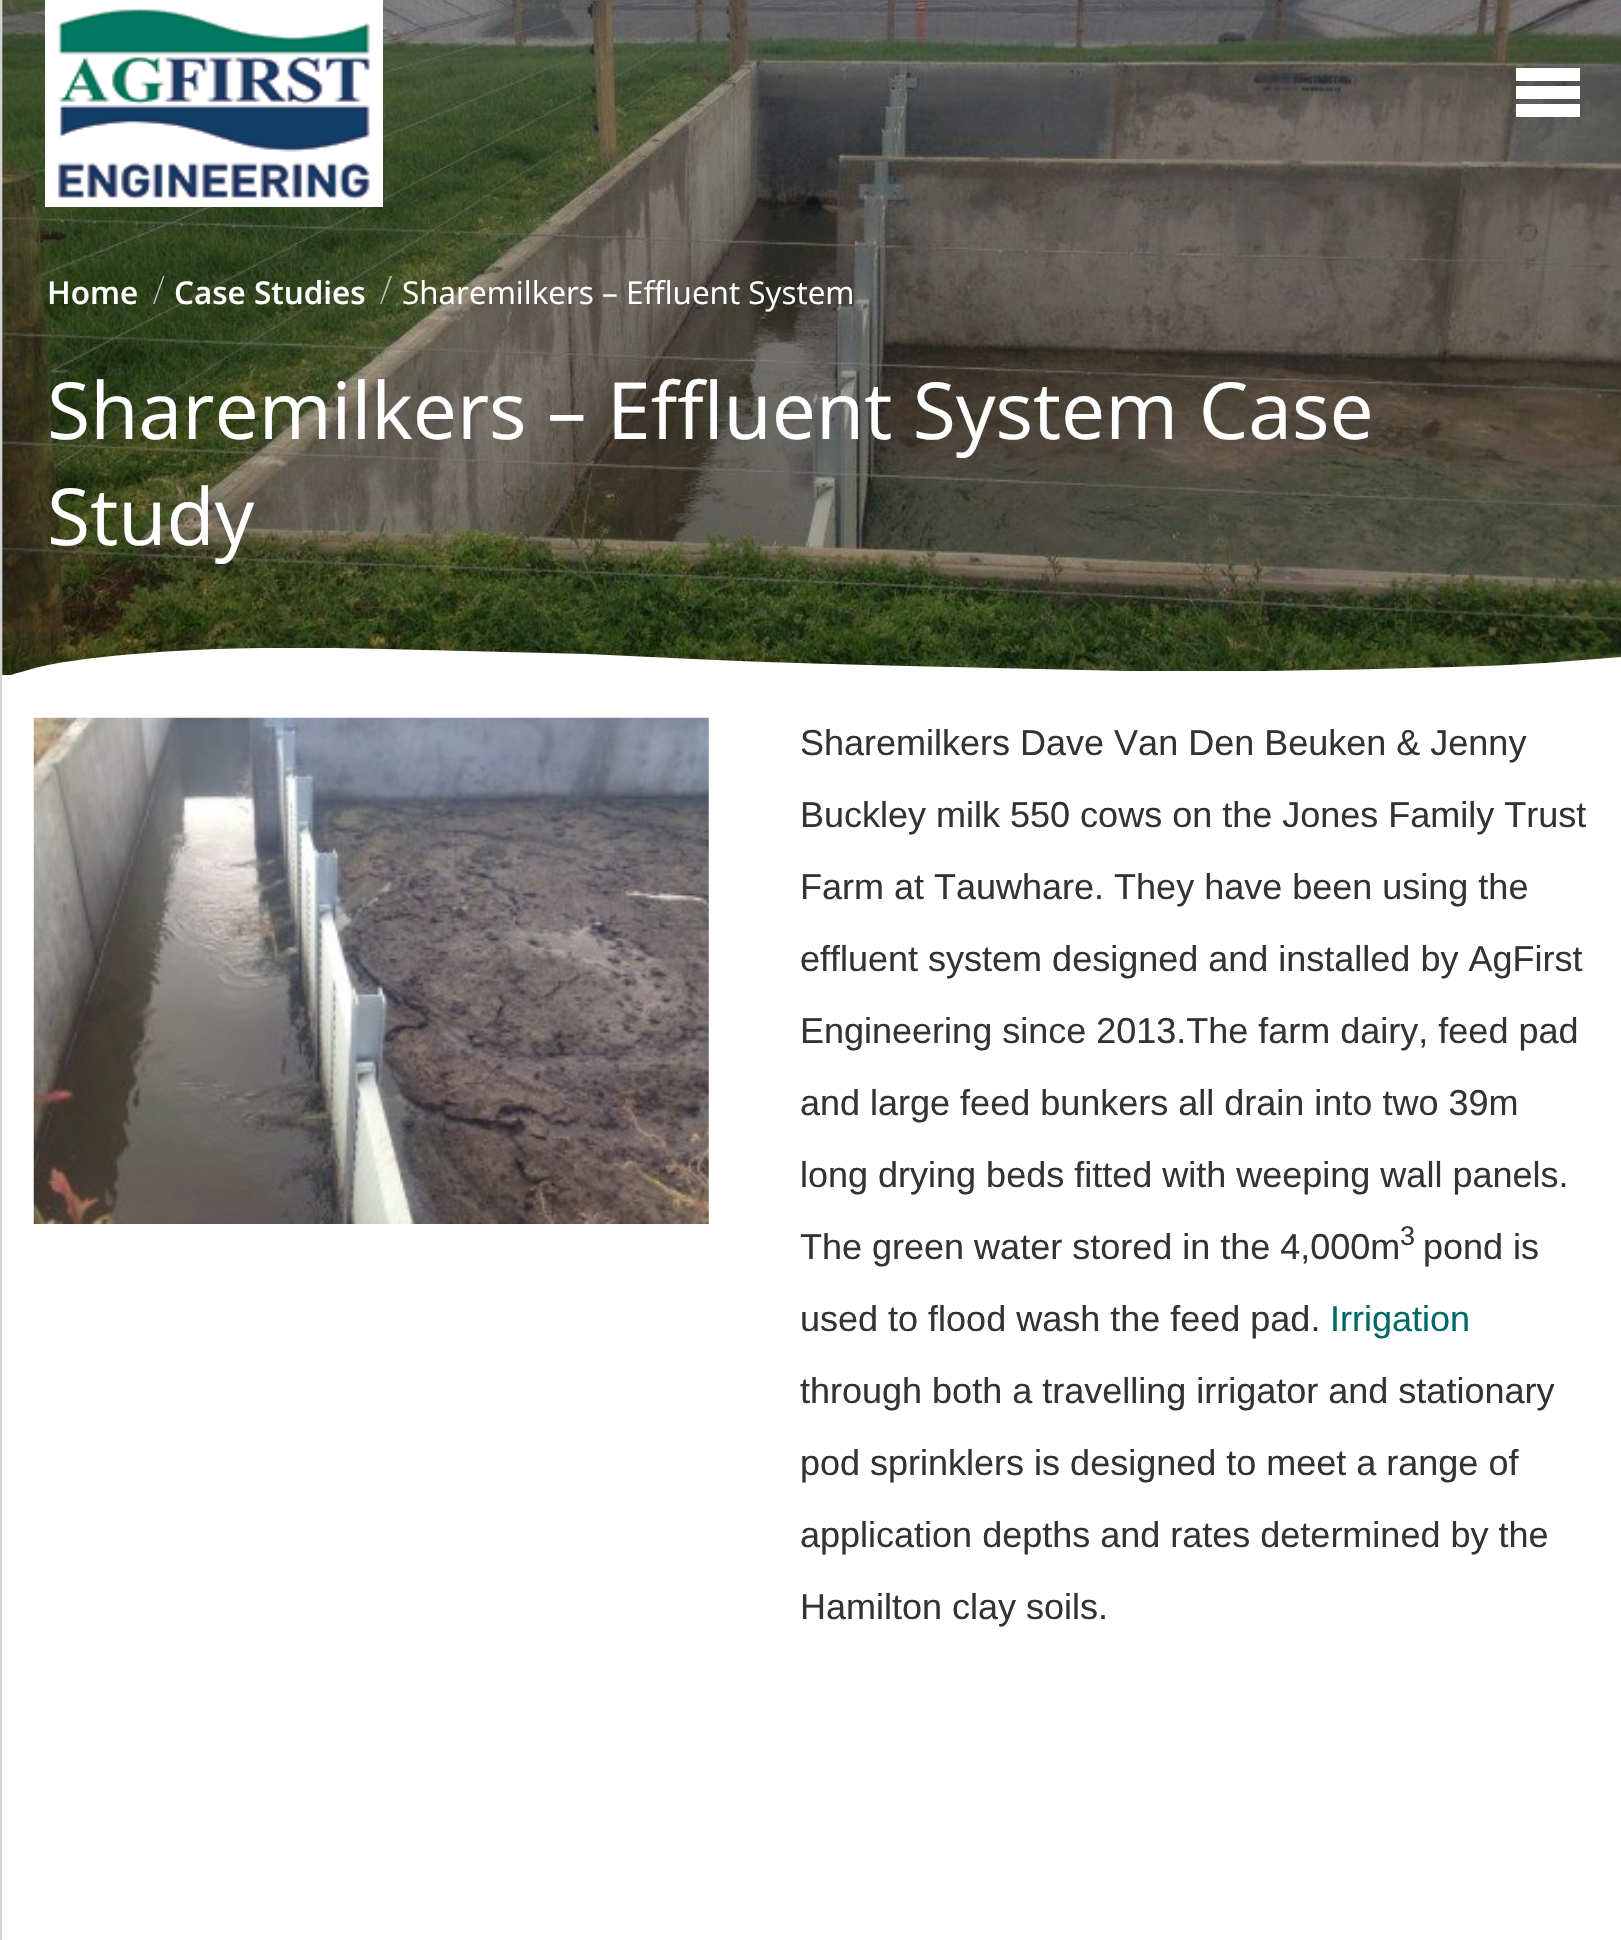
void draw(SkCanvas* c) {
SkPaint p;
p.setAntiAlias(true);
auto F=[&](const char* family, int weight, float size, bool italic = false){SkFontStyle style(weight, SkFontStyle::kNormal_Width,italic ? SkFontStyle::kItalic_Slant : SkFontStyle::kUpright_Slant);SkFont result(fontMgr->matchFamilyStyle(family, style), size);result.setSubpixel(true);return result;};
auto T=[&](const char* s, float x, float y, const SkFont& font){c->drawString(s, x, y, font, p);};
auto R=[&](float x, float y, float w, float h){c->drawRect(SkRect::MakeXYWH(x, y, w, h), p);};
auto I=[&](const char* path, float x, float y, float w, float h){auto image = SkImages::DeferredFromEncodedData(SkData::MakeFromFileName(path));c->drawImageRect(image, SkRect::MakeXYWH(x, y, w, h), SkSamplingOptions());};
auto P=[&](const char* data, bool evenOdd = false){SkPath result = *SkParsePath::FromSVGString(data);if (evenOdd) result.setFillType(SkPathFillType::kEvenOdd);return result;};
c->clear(0xffffffff);
I("2.png",2,0,1619,675);
p.setColor(0xffffffff);
R(45,0,338,207);
I("1.png",58,8,312,192);
c->drawPath(P("M1516 68h64v13h-64zm0 18h64v13h-64zm0 18h64v13h-64z"),p);
p.setColor(0xffd3d3d3);
R(0,0,2,1940);
auto f1 = F("Open Sans",600,31.5);
p.setColor(0xffffffff);
T("Home",47,304,f1);
p.setColor(0xffbfbfbf);
c->drawPath(P("M154.5 304l10-28h-1.5l-10 28z"),p);
p.setColor(0xffffffff);
T("Case Studies",174,304,f1);
p.setColor(0xffbfbfbf);
c->drawPath(P("M381.5 304l10.5-28h-2l-10 28z"),p);
auto f2 = F("Open Sans",400,31.5);
p.setColor(0xffffffff);
T("Sharemilkers – Effluent System",402,304,f2);
auto f3 = F("Open Sans",400,78.75);
T("Sharemilkers – Effluent System Case",47,439,f3);
T("Study",47,545,f3);
c->save();
c->clipRect(SkRect::MakeXYWH(2,648,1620,32));
c->drawPath(P("M4 679v-2c14-4 29-9 44-12c36-7 74-10 111-13c75-5 150-5 225-3l203 5l106 5c86 4 172 6 258 8l177 4h136c62-1 125-2 188-4c31-1 62-2 93-4l76-6v22z"),p);
c->restore();
I("3.png",33,717,676,507);
auto f4 = F("Liberation Sans",400,36);
p.setColor(0xff333333);
T("Sharemilkers Dave Van Den Beuken & Jenny",800,755,f4);
T("Buckley milk 550 cows on the Jones Family Trust",800,827,f4);
T("Farm at Tauwhare. They have been using the",800,899,f4);
T("effluent system designed and installed by AgFirst",800,971,f4);
T("Engineering since 2013.The farm dairy, feed pad",800,1043,f4);
T("and large feed bunkers all drain into two 39m",800,1115,f4);
T("long drying beds fitted with weeping wall panels.",800,1187,f4);
T("The green water stored in the 4,000m",800,1259,f4);
auto f5 = F("Liberation Sans",400,27);
T("3",1400,1245,f5);
T("pond is",1423,1259,f4);
T("used to flood wash the feed pad.",800,1331,f4);
p.setColor(0xff006965);
T("Irrigation",1330,1331,f4);
p.setColor(0xff333333);
T("through both a travelling irrigator and stationary",800,1403,f4);
T("pod sprinklers is designed to meet a range of",800,1475,f4);
T("application depths and rates determined by the",800,1547,f4);
T("Hamilton clay soils.",800,1619,f4);
}
